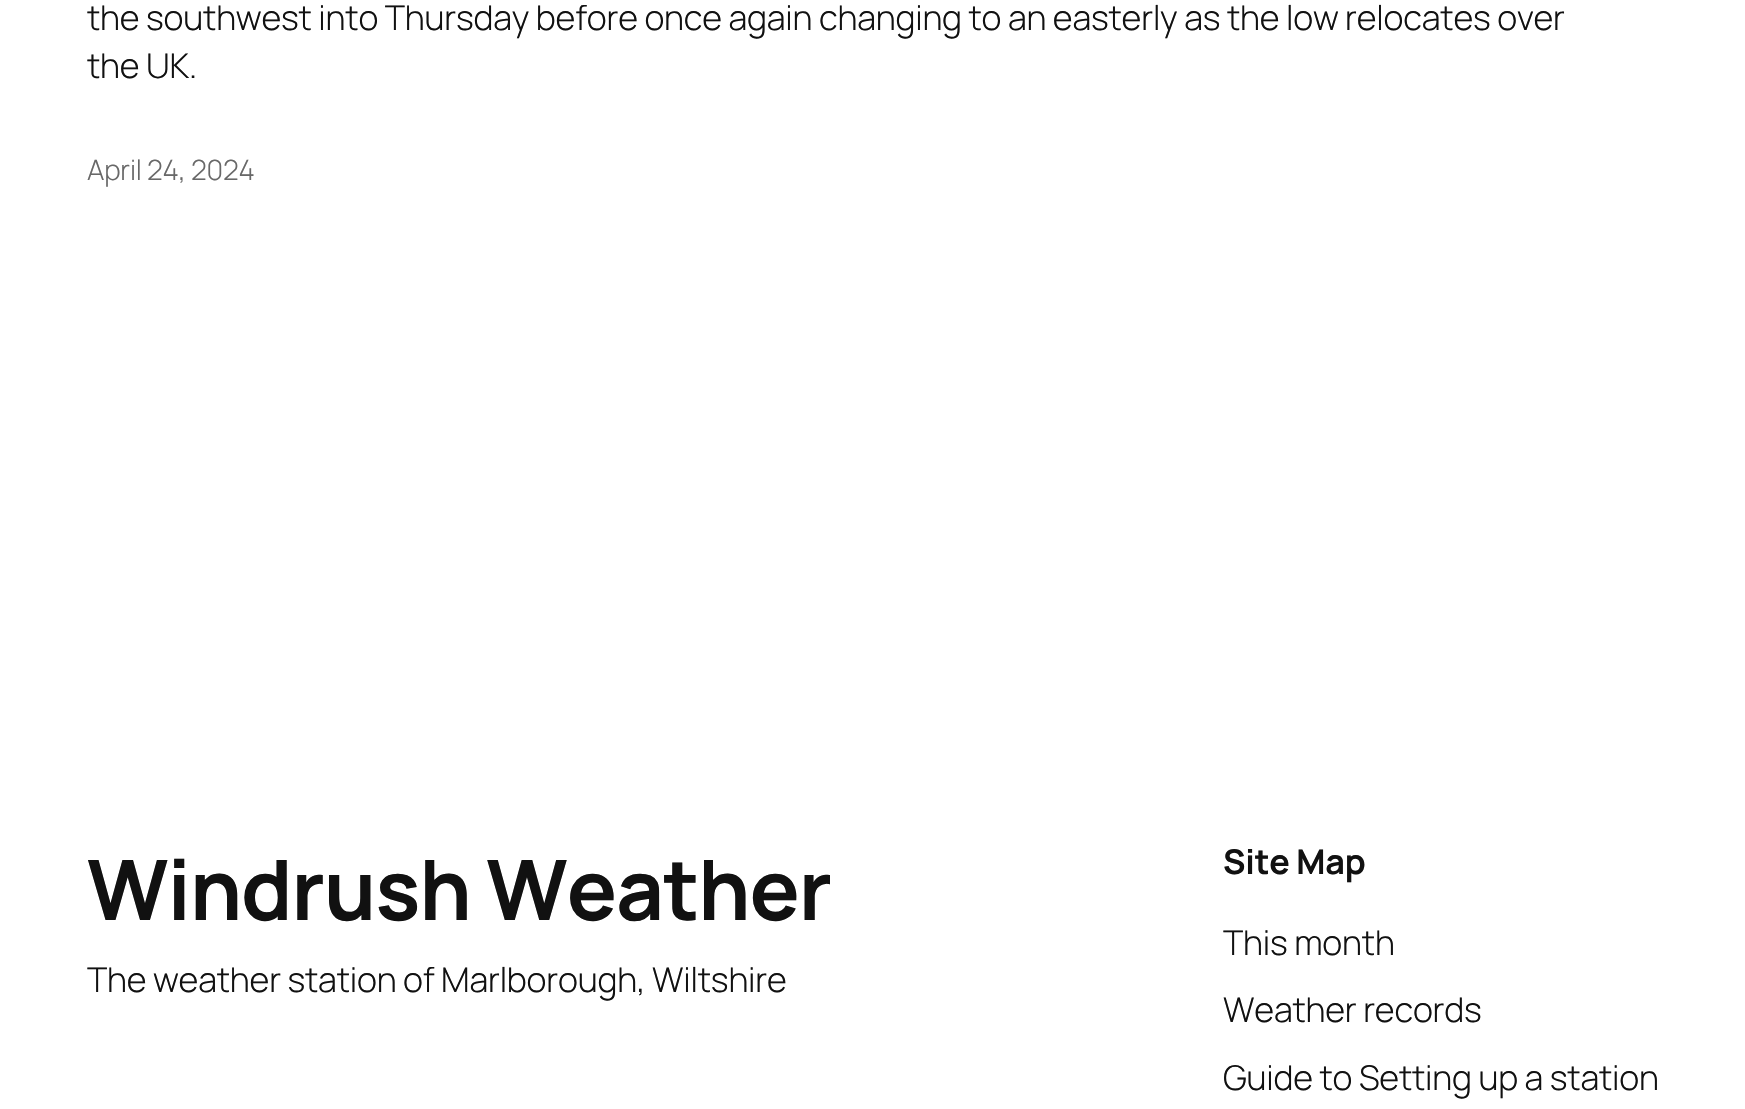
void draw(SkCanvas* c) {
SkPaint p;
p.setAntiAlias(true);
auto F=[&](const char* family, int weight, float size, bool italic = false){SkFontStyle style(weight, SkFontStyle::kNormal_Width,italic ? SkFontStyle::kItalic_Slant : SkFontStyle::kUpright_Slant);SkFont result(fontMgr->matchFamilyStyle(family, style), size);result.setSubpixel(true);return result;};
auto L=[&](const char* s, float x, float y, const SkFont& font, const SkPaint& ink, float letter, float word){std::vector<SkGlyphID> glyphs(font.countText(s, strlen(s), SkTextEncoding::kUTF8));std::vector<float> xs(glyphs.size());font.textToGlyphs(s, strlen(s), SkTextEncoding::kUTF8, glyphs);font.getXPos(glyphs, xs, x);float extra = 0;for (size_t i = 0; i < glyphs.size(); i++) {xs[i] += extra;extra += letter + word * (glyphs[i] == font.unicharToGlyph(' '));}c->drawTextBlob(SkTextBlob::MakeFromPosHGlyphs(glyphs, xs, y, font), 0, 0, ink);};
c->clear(0xffffffff);
auto f1 = F("Manrope",300,34.15);
p.setColor(0xff111111);
L("the southwest into Thursday before once again changing to an easterly as the low relocates over",87,30,f1,p,-.2,0);
L("the UK.",87,78,f1,p,-.2,0);
auto f2 = F("Manrope",300,28);
p.setColor(0xff686868);
L("April 24, 2024",87,180,f2,p,-.2,0);
auto f3 = F("Manrope",700,83.5);
p.setColor(0xff111111);
L("Windrush Weather",87,920,f3,p,-1,0);
L("The weather station of Marlborough, Wiltshire",87,992,f1,p,-.2,0);
auto f4 = F("Manrope",700,34.15);
L("Site Map",1223,874,f4,p,-.2,0);
L("This month",1223,955,f1,p,-.2,0);
L("Weather records",1223,1022,f1,p,-.2,0);
L("Guide to Setting up a station",1223,1090,f1,p,-.2,0);
}
